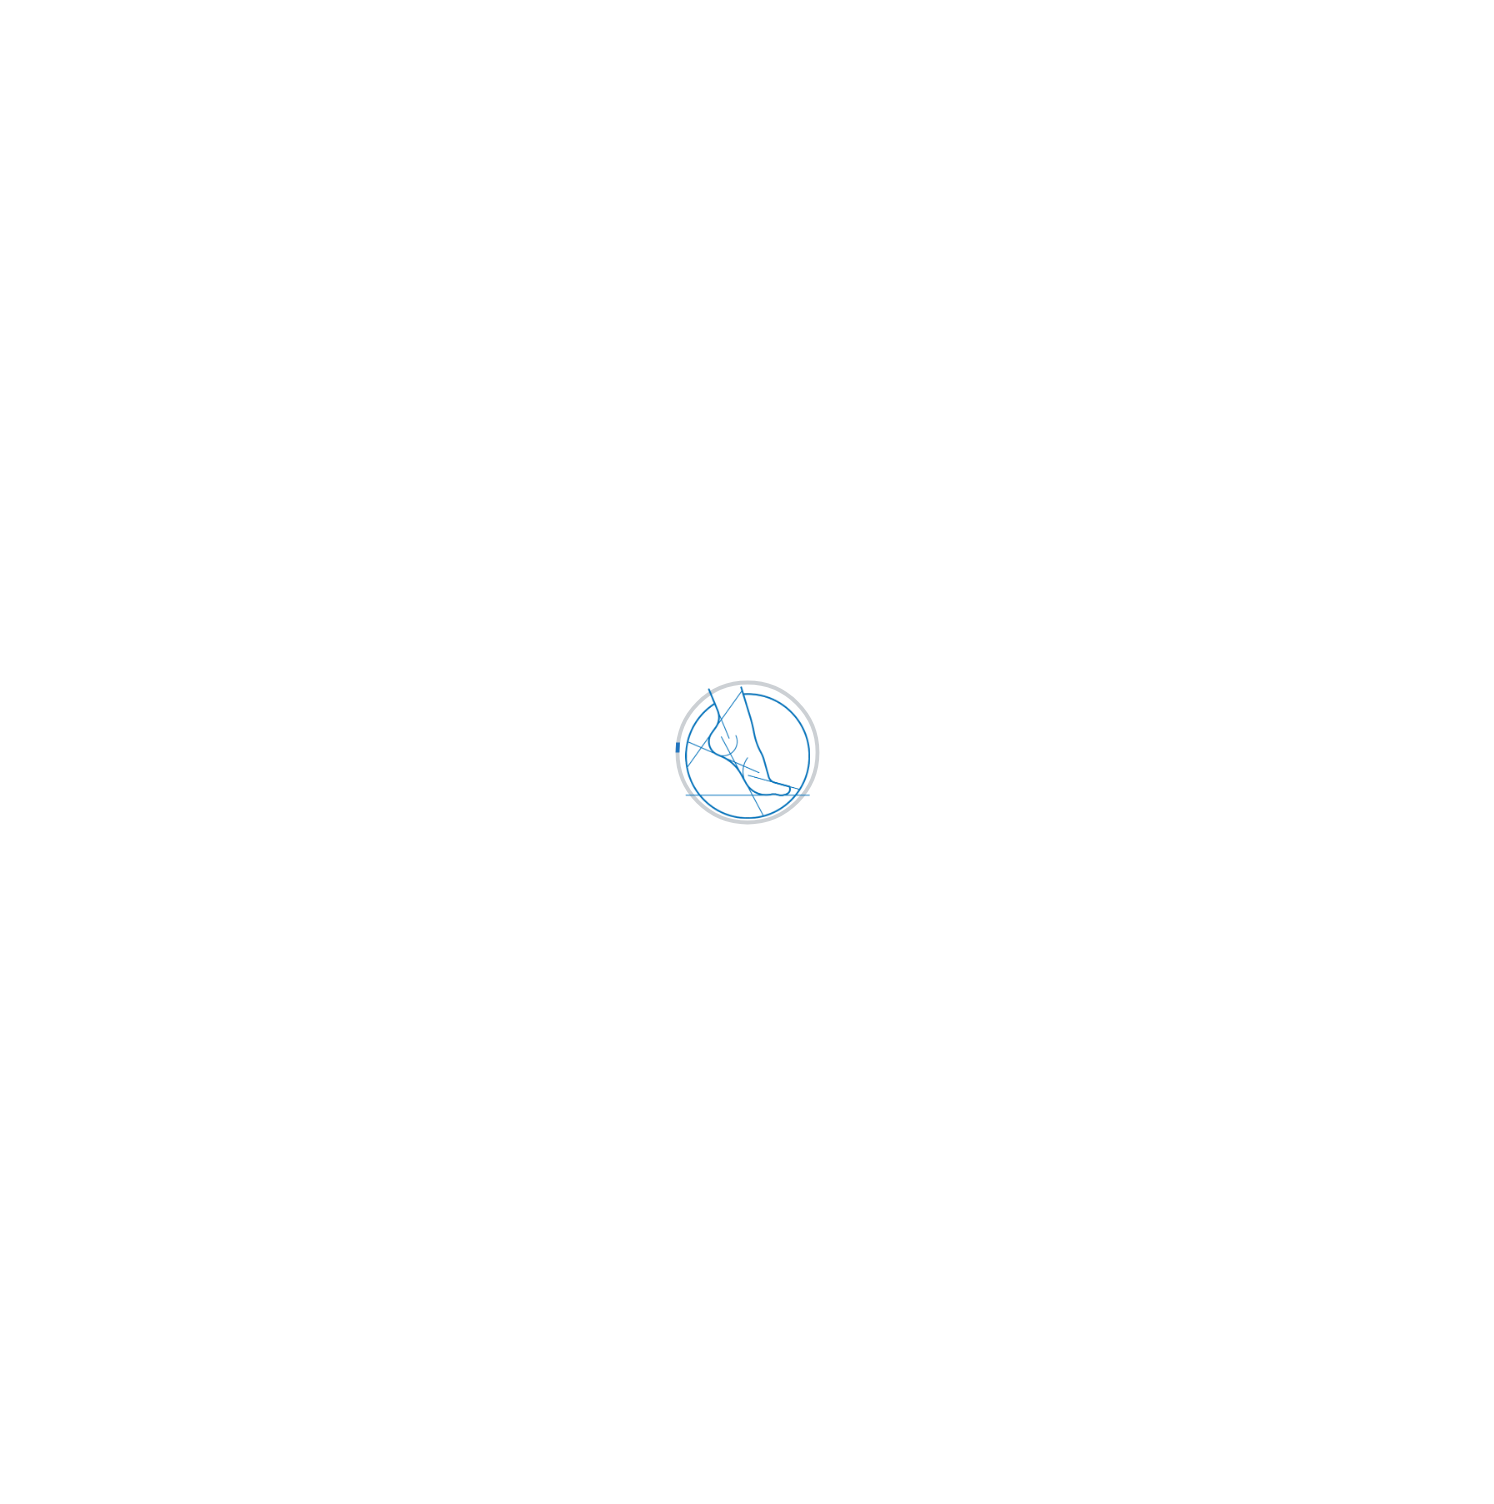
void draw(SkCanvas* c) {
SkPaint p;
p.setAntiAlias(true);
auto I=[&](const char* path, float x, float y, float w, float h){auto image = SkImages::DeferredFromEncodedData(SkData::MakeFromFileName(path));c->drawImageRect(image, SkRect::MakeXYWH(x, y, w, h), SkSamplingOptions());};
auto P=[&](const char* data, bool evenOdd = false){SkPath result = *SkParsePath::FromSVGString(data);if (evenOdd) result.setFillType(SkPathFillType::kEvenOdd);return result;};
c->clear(0xffffffff);
p.setStroke(true);
p.setStrokeWidth(3.8);
p.setColor(0xffccd0d4);
c->drawPath(P("M677.5 752.5c0-38.5 31.5-70 70-70c38.5 0 70 31.5 70 70c0 38.5-31.5 70-70 70c-38.5 0-70-31.5-70-70"),p);
p.setColor(0xff1e73be);
c->drawPath(P("M677.5 752.5l.5-10"),p);
I("1.png",685,686,125,133);
}
